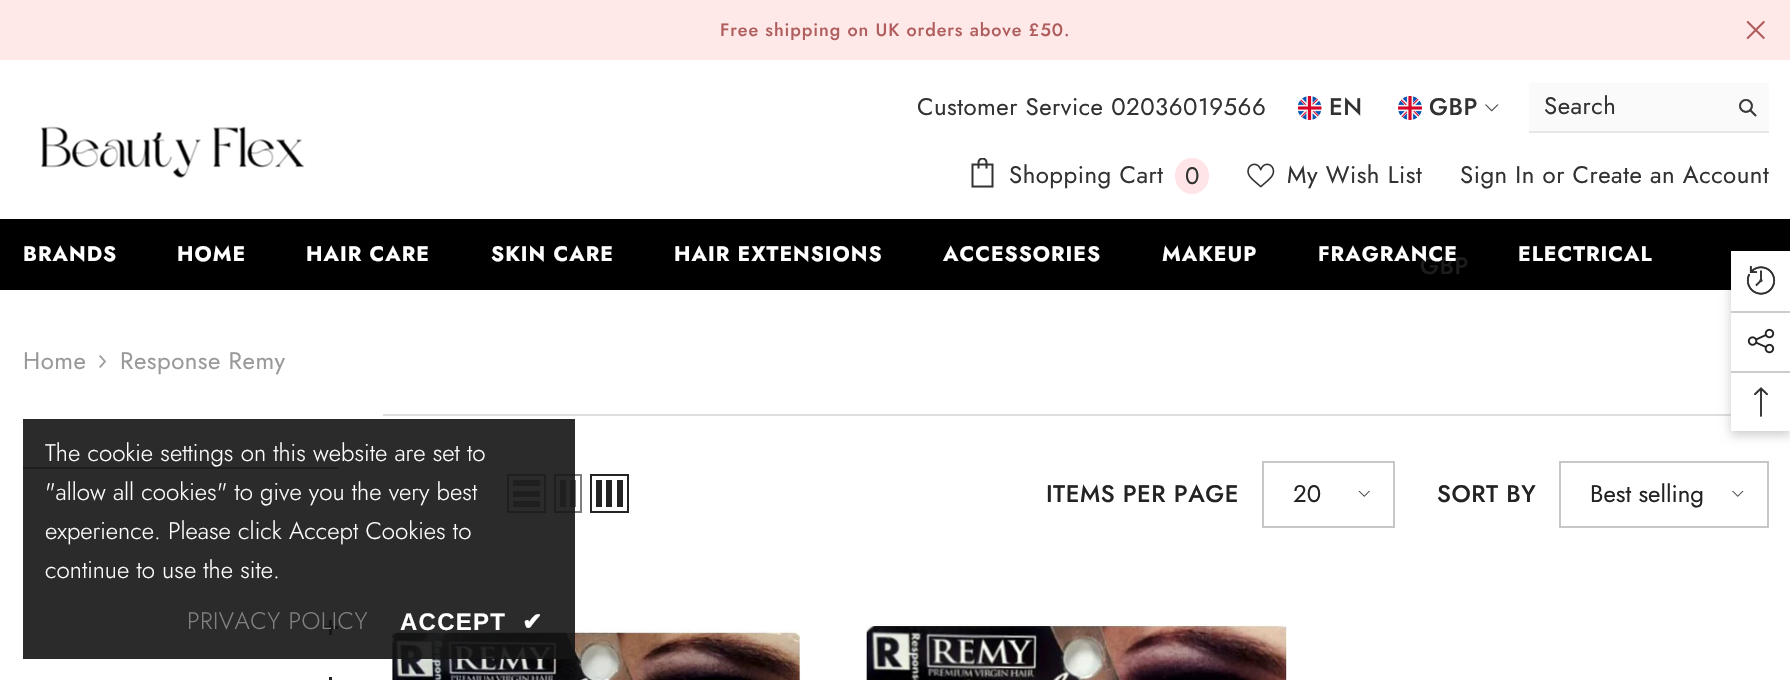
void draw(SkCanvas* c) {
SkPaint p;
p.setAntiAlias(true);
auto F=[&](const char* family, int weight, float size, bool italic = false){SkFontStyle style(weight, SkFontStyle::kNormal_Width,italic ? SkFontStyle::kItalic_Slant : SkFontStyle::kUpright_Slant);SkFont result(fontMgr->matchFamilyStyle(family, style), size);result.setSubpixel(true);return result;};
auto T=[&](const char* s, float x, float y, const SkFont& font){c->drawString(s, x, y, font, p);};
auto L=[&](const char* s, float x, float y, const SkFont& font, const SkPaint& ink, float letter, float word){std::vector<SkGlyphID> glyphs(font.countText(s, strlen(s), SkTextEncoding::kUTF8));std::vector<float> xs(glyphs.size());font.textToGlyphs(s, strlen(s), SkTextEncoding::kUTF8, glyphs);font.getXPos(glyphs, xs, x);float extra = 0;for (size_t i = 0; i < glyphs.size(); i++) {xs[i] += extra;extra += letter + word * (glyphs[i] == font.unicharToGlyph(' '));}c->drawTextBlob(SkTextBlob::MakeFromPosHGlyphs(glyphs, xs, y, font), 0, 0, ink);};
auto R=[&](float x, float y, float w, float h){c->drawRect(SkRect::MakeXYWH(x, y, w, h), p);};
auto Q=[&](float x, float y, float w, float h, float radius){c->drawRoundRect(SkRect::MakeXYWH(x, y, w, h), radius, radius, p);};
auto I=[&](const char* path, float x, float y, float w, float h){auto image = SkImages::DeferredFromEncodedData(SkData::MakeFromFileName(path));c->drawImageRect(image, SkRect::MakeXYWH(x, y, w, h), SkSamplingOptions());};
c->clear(0xffffffff);
p.setColor(0xffffe8e8);
R(0,0,1790,60);
auto f1 = F("Jost",500,18);
p.setColor(0xffb05d5d);
L("Free shipping on UK orders above £50.",720,36,f1,p,.9,0);
I("1.png",1746,21,19,18);
I("2.png",41,126,264,52);
auto f2 = F("Jost",400,24);
p.setColor(0xff323232);
L("Customer Service 02036019566",917,115,f2,p,.5,0);
I("3.png",1298,96,24,24);
auto f3 = F("Jost",500,24);
L("EN",1329,115,f3,p,.5,0);
I("4.png",1398,96,24,24);
L("GBP",1429,115,f3,p,.5,0);
I("5.png",1485,104,14,8);
p.setColor(0xff000000);
R(0,219,1790,71);
p.setColor(0xff1c1c1c);
L("GBP",1420,274,f3,p,.5,0);
p.setColor(0xfffafafa);
R(1529,83,240,48);
p.setColor(0xffe7e7e7);
R(1529,131,240,2);
p.setColor(0xff323232);
L("Search",1544,114,f2,p,.5,0);
I("6.png",1739,99,18,18);
I("7.png",971,158,23,30);
L("Shopping Cart",1009,183,f2,p,.5,0);
p.setColor(0xffffe5e8);
Q(1175,158,34,36,17);
p.setColor(0xff323232);
T("0",1185,184,f2);
I("8.png",1247,163,28,25);
L("My Wish List",1287,183,f2,p,.5,0);
L("Sign In or Create an Account",1460,183,f2,p,.5,0);
auto f4 = F("Jost",700,21);
p.setColor(0xffffffff);
L("BRANDS",23,261,f4,p,1,0);
L("HOME",177,261,f4,p,1,0);
L("HAIR CARE",306,261,f4,p,1,0);
L("SKIN CARE",491,261,f4,p,1,0);
L("HAIR EXTENSIONS",674,261,f4,p,1,0);
L("ACCESSORIES",943,261,f4,p,1,0);
L("MAKEUP",1162,261,f4,p,1,0);
L("FRAGRANCE",1318,261,f4,p,1,0);
L("ELECTRICAL",1518,261,f4,p,1,0);
p.setColor(0xff999999);
L("Home",23,369,f2,p,.5,0);
I("9.png",99,355,7,13);
L("Response Remy",120,369,f2,p,.5,0);
p.setColor(0xff787878);
R(23,467,315,2);
p.setColor(0xff232323);
R(323,626,15,3);
R(329,620,3,15);
R(329,677,3,3);
p.setColor(0xffdedede);
R(383,414,1348,2);
p.setStroke(true);
p.setStrokeWidth(2);
p.setColor(0xff808080);
c->drawRect(SkRect::MakeXYWH(508,475,37,37),p);
p.setStroke(false);
R(513,501,27,6);
R(513,491,27,6);
R(513,480,27,6);
p.setStroke(true);
c->drawRect(SkRect::MakeXYWH(555,475,26,37),p);
p.setStroke(false);
R(570,480,6,27);
R(560,480,6,27);
p.setStroke(true);
p.setColor(0xff232323);
c->drawRect(SkRect::MakeXYWH(591,475,37,37),p);
p.setStroke(false);
R(617,480,6,27);
R(606,480,6,27);
R(596,480,6,27);
L("ITEMS PER PAGE",1046,502,f3,p,.5,0);
p.setStroke(true);
p.setColor(0xffc7c7c7);
c->drawRect(SkRect::MakeXYWH(1263,462,131,65),p);
p.setStroke(false);
p.setColor(0xff232323);
T("20",1293,502,f2);
I("10.png",1358,491,12,6);
L("SORT BY",1437,502,f3,p,.5,0);
p.setStroke(true);
p.setColor(0xffc7c7c7);
c->drawRect(SkRect::MakeXYWH(1560,462,208,65),p);
p.setStroke(false);
p.setColor(0xff232323);
T("Best selling",1590,502,f2);
I("11.png",1732,491,12,6);
I("12.png",391,628,410,52);
I("13.png",866,624,421,56);
p.setColor(0x33000000);
p.setMaskFilter(SkMaskFilter::MakeBlur(kNormal_SkBlurStyle, 5));
c->drawRect(SkRect::MakeXYWH(1731,255,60,180),p);
p.setMaskFilter(nullptr);
p.setColor(0xffffffff);
R(1731,251,59,180);
I("14.png",1746,266,30,29);
p.setColor(0xffcccccc);
R(1731,311,59,2);
I("15.png",1747,328,28,26);
R(1731,371,59,2);
I("16.png",1754,387,14,30);
p.setColor(0xe6141414);
R(23,419,552,240);
auto f5 = F("Jost",300,24);
p.setColor(0xffffffff);
T("The cookie settings on this website are set to",45,461,f5);
T("\"allow all cookies\" to give you the very best",45,500,f5);
T("experience. Please click Accept Cookies to",45,539,f5);
T("continue to use the site.",45,578,f5);
p.setColor(0xff818181);
L("PRIVACY POLICY",187,629,f5,p,.5,0);
auto f6 = F("Liberation Sans",700,24);
p.setColor(0xffffffff);
L("ACCEPT",400,630,f6,p,1.25,0);
auto f7 = F("DejaVu Sans",700,24);
L("✔",522,630,f7,p,1.25,0);
}
